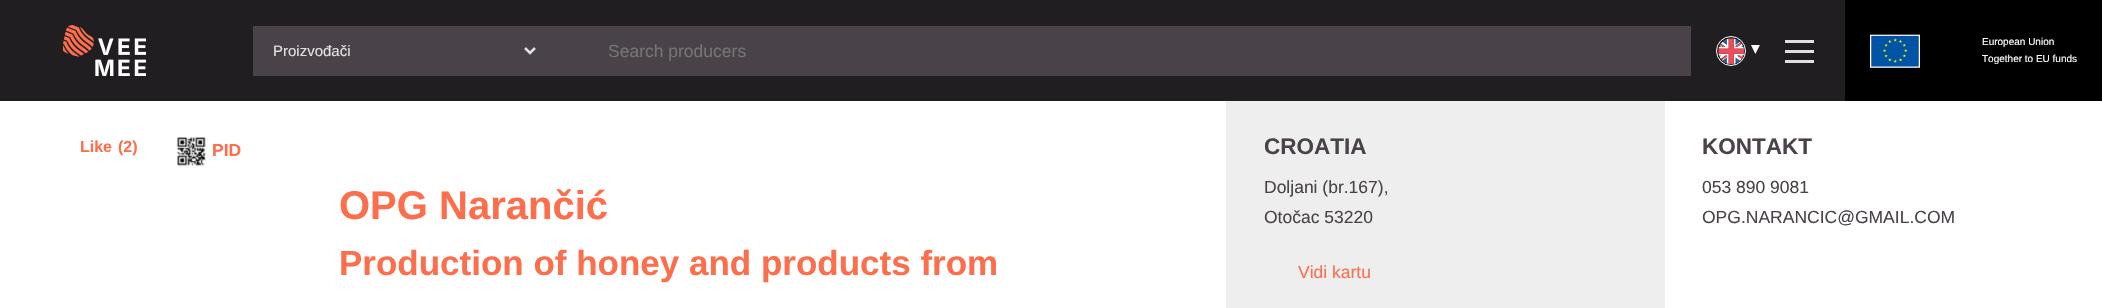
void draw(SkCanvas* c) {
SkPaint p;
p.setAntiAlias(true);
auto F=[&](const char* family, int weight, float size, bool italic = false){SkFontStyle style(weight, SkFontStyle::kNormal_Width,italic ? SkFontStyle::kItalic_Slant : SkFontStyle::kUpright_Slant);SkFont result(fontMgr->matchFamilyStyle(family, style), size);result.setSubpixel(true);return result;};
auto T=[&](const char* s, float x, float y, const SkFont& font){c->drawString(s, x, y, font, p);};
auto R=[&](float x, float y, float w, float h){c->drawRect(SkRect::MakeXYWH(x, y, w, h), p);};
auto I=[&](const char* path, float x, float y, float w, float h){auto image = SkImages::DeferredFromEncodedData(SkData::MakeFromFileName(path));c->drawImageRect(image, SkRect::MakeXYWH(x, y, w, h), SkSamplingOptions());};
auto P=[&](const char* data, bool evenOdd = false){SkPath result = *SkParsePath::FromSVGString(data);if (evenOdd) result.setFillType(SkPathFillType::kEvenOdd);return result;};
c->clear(0xffffffff);
p.setColor(0xff211e21);
R(0,0,1845,101);
I("1.png",63,25,83,51);
p.setColor(0xff494349);
R(253,26,1438,50);
p.setStroke(true);
p.setStrokeWidth(2.5);
p.setColor(0xffe0e0e0);
c->drawPath(P("M525 48l5 5l5-5"),p);
auto f1 = F("Liberation Sans",400,15);
p.setStroke(false);
T("Proizvođači",273,56,f1);
auto f2 = F("Liberation Sans",400,17.5);
p.setColor(0xff757575);
T("Search producers",608,57,f2);
p.setStroke(true);
p.setStrokeWidth(1);
p.setColor(0xffffffff);
c->drawCircle(1731,51,14.5,p);
I("2.png",1718,38,27,27);
auto f3 = F("DejaVu Sans",400,17.5);
p.setStroke(false);
T("▾",1751,54,f3);
p.setColor(0xffe0e0e0);
R(1785,40,29,3);
R(1785,50,29,3);
R(1785,60,29,3);
p.setColor(0xff000000);
R(1845,0,257,101);
I("3.png",1870,34,50,34);
auto f4 = F("Liberation Sans",400,10);
p.setColor(0xffffffff);
T("European Union",1982,45,f4);
T("Together to EU funds",1982,62,f4);
auto f5 = F("Liberation Sans",700,16);
p.setColor(0xfffc6e4c);
T("Like",80,152,f5);
T("(2)",118,152,f5);
I("4.png",177,137,29,29);
auto f6 = F("Liberation Sans",700,17.5);
T("PID",212,156,f6);
auto f7 = F("Liberation Sans",700,40);
T("OPG Narančić",339,219,f7);
auto f8 = F("Liberation Sans",700,35);
T("Production of honey and products from",339,275,f8);
p.setColor(0xffeeeeee);
R(1226,101,439,207);
auto f9 = F("Liberation Sans",700,22.5);
p.setColor(0xff494349);
T("CROATIA",1264,154,f9);
T("Doljani (br.167),",1264,193,f2);
T("Otočac 53220",1264,223,f2);
p.setColor(0xfffc6e4c);
T("Vidi kartu",1298,278,f2);
p.setColor(0xff494349);
T("KONTAKT",1702,154,f9);
T("053 890 9081",1702,193,f2);
T("OPG.NARANCIC@GMAIL.COM",1702,223,f2);
}
